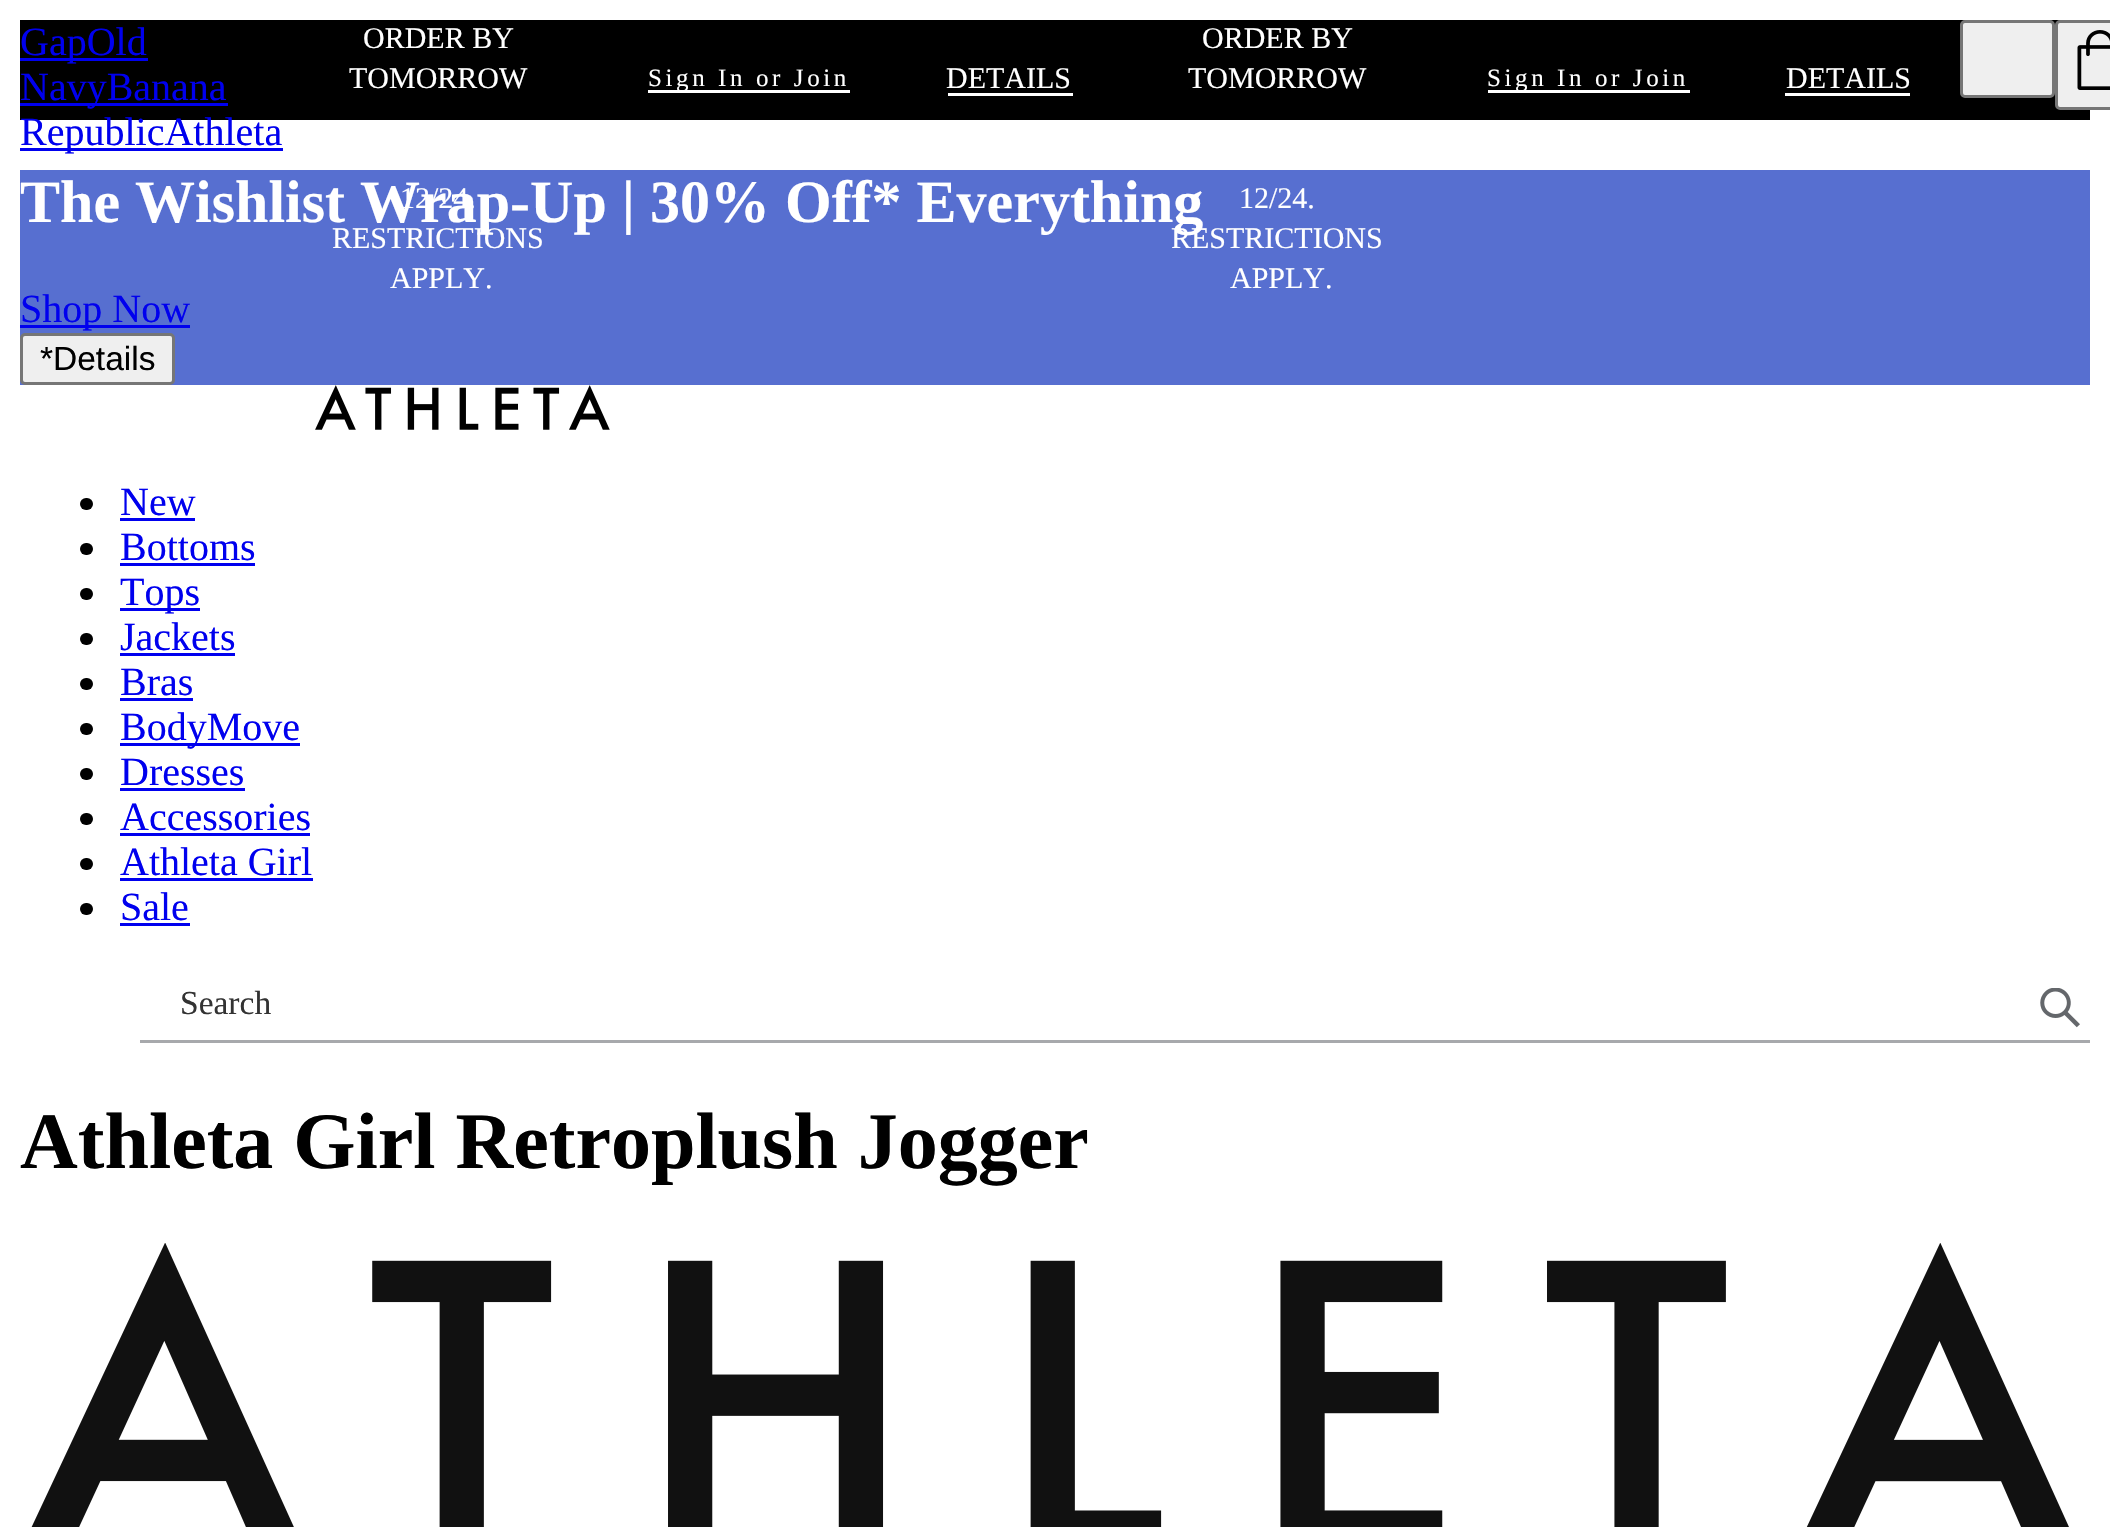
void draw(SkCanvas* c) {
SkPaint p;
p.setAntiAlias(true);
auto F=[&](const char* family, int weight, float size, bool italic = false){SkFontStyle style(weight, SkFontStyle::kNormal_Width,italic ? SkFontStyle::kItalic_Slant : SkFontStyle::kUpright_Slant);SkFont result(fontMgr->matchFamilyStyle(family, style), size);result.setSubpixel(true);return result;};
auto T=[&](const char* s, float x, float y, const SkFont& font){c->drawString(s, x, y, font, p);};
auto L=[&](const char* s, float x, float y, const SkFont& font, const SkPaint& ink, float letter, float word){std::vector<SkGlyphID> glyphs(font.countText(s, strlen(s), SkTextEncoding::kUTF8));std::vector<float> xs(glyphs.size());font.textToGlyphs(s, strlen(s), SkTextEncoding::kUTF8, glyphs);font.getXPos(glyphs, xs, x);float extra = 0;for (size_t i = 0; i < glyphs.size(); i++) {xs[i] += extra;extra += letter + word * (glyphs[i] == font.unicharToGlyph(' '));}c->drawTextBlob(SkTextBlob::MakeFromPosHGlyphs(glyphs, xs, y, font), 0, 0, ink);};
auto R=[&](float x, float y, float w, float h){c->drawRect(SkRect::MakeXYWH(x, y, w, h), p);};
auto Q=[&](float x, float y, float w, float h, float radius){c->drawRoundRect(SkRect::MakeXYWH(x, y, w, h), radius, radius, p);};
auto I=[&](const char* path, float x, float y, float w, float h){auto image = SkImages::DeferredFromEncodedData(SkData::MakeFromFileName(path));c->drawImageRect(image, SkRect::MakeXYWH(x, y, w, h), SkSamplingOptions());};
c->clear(0xffffffff);
p.setColor(0xff000000);
R(20,20,2070,100);
p.setColor(0xff0000ee);
R(20,58,128,3);
auto f1 = F("Liberation Serif",400,40);
T("GapOld",20,55,f1);
R(20,103,208,3);
T("NavyBanana",20,100,f1);
R(20,148,263,3);
T("RepublicAthleta",20,145,f1);
auto f2 = F("Liberation Serif",400,30);
p.setColor(0xffffffff);
T("ORDER BY",363,48,f2);
T("TOMORROW",349,88,f2);
p.setColor(0xff576fd0);
R(20,170,2070,215);
p.setColor(0xffffffff);
T("12/24.",400,208,f2);
T("RESTRICTIONS",332,248,f2);
T("APPLY.",390,288,f2);
R(648,90,202,3);
auto f3 = F("Liberation Serif",400,25);
L("Sign In or Join",648,86,f3,p,3.6,0);
T("DETAILS",946,88,f2);
R(948,93,125,3);
T("ORDER BY",1202,48,f2);
T("TOMORROW",1188,88,f2);
T("12/24.",1239,208,f2);
T("RESTRICTIONS",1171,248,f2);
T("APPLY.",1230,288,f2);
R(1488,90,202,3);
L("Sign In or Join",1487,86,f3,p,3.6,0);
T("DETAILS",1786,88,f2);
R(1785,93,125,3);
p.setColor(0xffefefef);
c->drawRoundRect(SkRect::MakeXYWH(1961.5,21.5,92,75),3.5,3.5,p);
p.setStroke(true);
p.setStrokeWidth(3);
p.setColor(0xff767676);
c->drawRoundRect(SkRect::MakeXYWH(1961.5,21.5,92,75),3.5,3.5,p);
p.setStroke(false);
p.setColor(0xffefefef);
c->drawRoundRect(SkRect::MakeXYWH(2056.5,21.5,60,87),3.5,3.5,p);
p.setStroke(true);
p.setColor(0xff767676);
c->drawRoundRect(SkRect::MakeXYWH(2056.5,21.5,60,87),3.5,3.5,p);
I("1.png",2077,30,33,60);
auto f4 = F("Liberation Serif",700,60);
p.setStroke(false);
p.setColor(0xffffffff);
T("The Wishlist Wrap-Up | 30% Off* Everything",20,222,f4);
p.setColor(0xff0000ee);
R(20,325,170,3);
T("Shop Now",20,322,f1);
p.setColor(0xffefefef);
c->drawRoundRect(SkRect::MakeXYWH(21.5,334.5,152,49),3.5,3.5,p);
p.setStroke(true);
p.setColor(0xff767676);
c->drawRoundRect(SkRect::MakeXYWH(21.5,334.5,152,49),3.5,3.5,p);
auto f5 = F("Liberation Sans",400,33.5);
p.setStroke(false);
p.setColor(0xff000000);
T("*Details",40,370,f5);
I("2.png",315,385,295,45);
Q(80,498,13,12,6);
p.setColor(0xff0000ee);
T("New",120,515,f1);
R(120,518,75,3);
p.setColor(0xff000000);
Q(80,543,13,12,6);
p.setColor(0xff0000ee);
T("Bottoms",120,560,f1);
R(120,563,135,3);
p.setColor(0xff000000);
Q(80,588,13,12,6);
p.setColor(0xff0000ee);
R(120,608,80,3);
T("Tops",120,605,f1);
p.setColor(0xff000000);
Q(80,633,13,12,6);
p.setColor(0xff0000ee);
T("Jackets",120,650,f1);
R(120,653,115,3);
p.setColor(0xff000000);
Q(80,678,13,12,6);
p.setColor(0xff0000ee);
T("Bras",120,695,f1);
R(120,698,73,3);
p.setColor(0xff000000);
Q(80,723,13,12,6);
p.setColor(0xff0000ee);
R(120,743,180,3);
T("BodyMove",120,740,f1);
p.setColor(0xff000000);
Q(80,768,13,12,6);
p.setColor(0xff0000ee);
T("Dresses",120,785,f1);
R(120,788,125,3);
p.setColor(0xff000000);
Q(80,813,13,12,6);
p.setColor(0xff0000ee);
T("Accessories",120,830,f1);
R(120,833,190,3);
p.setColor(0xff000000);
Q(80,858,13,12,6);
p.setColor(0xff0000ee);
T("Athleta Girl",120,875,f1);
R(120,878,193,3);
p.setColor(0xff000000);
Q(80,903,13,12,6);
p.setColor(0xff0000ee);
T("Sale",120,920,f1);
R(120,923,70,3);
p.setColor(0xffa7a9ac);
R(140,1040,1950,3);
auto f6 = F("Liberation Serif",400,33.5);
p.setColor(0xff333333);
T("Search",180,1014,f6);
I("3.png",2040,988,40,40);
auto f7 = F("Liberation Serif",700,80);
p.setColor(0xff000000);
T("Athleta Girl Retroplush Jogger",20,1168,f7);
I("4.png",31,1243,2038,284);
}
